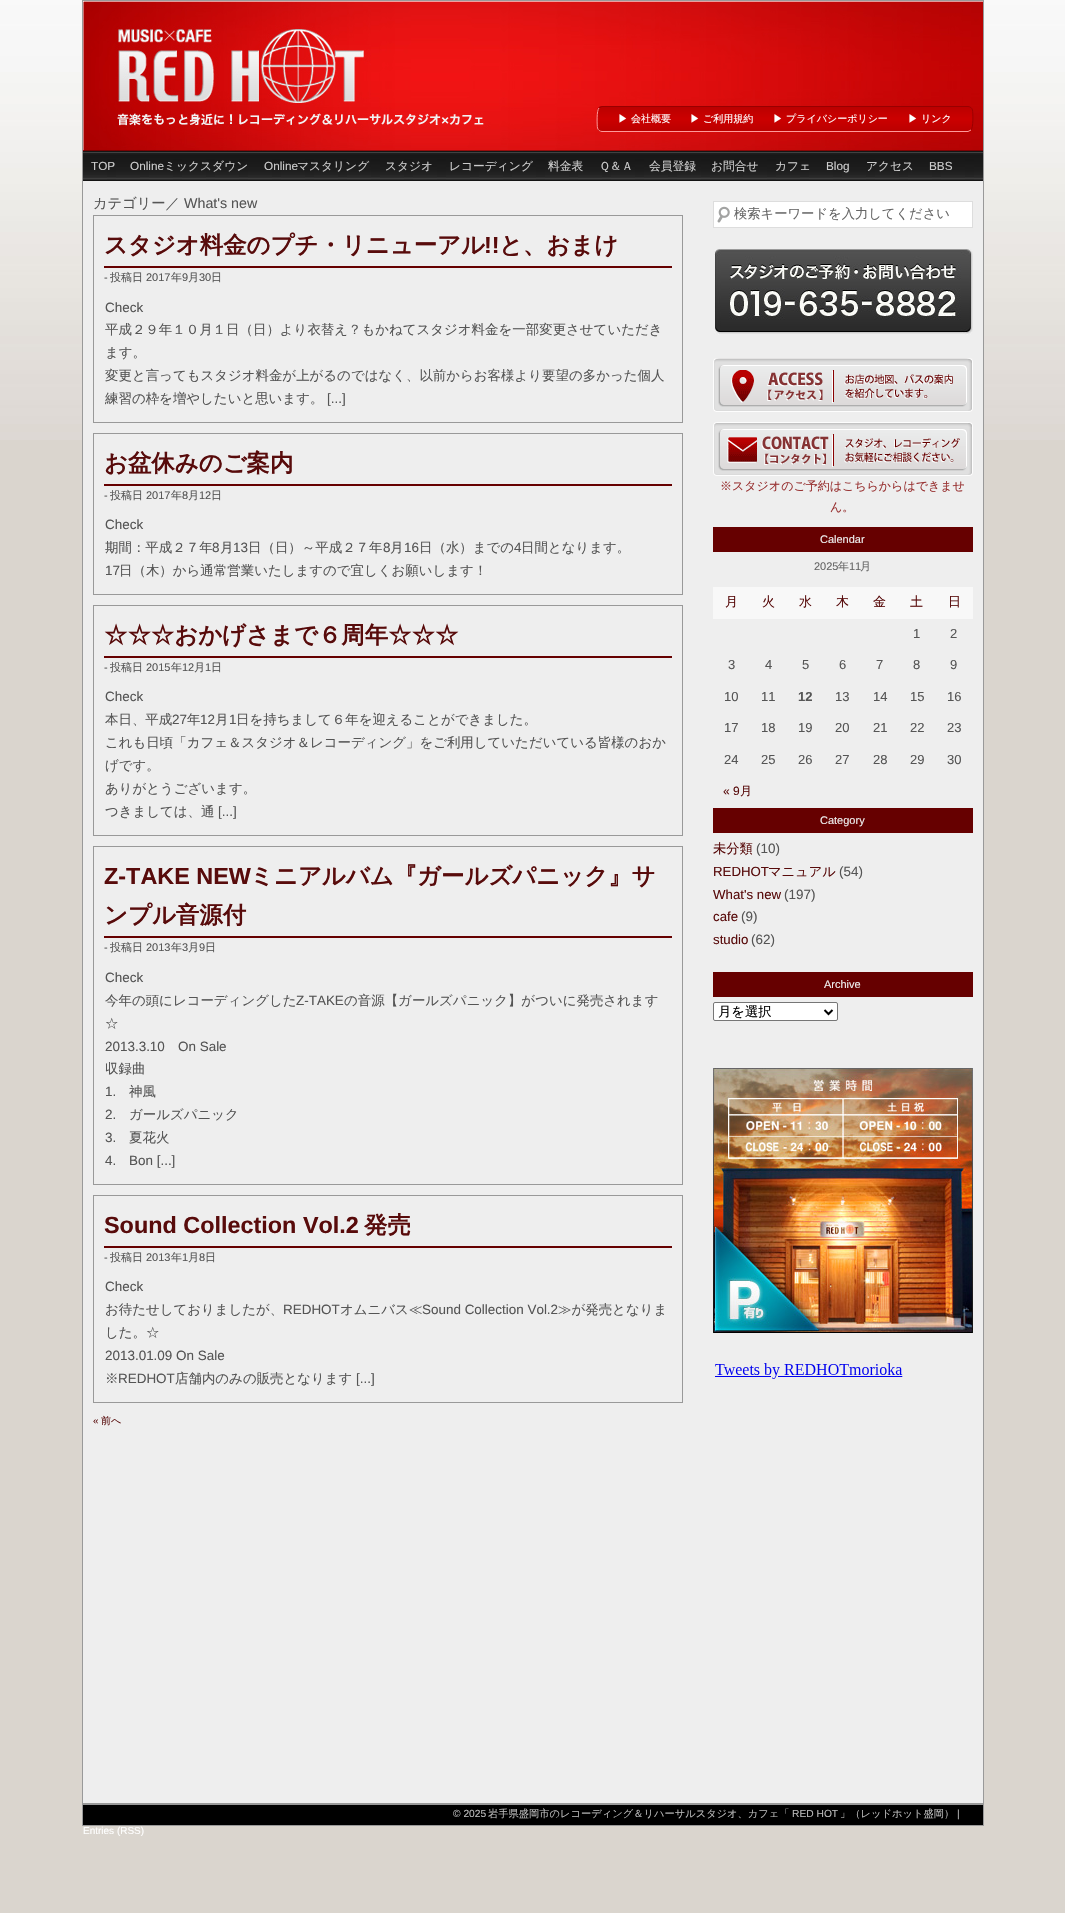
void draw(SkCanvas* c) {
SkPaint p;
p.setAntiAlias(true);
auto F=[&](const char* family, int weight, float size, bool italic = false){SkFontStyle style(weight, SkFontStyle::kNormal_Width,italic ? SkFontStyle::kItalic_Slant : SkFontStyle::kUpright_Slant);SkFont result(fontMgr->matchFamilyStyle(family, style), size);result.setSubpixel(true);return result;};
auto T=[&](const char* s, float x, float y, const SkFont& font){c->drawString(s, x, y, font, p);};
auto R=[&](float x, float y, float w, float h){c->drawRect(SkRect::MakeXYWH(x, y, w, h), p);};
auto I=[&](const char* path, float x, float y, float w, float h){auto image = SkImages::DeferredFromEncodedData(SkData::MakeFromFileName(path));c->drawImageRect(image, SkRect::MakeXYWH(x, y, w, h), SkSamplingOptions());};
auto P=[&](const char* data, bool evenOdd = false){SkPath result = *SkParsePath::FromSVGString(data);if (evenOdd) result.setFillType(SkPathFillType::kEvenOdd);return result;};
c->clear(0xffdad5ce);
I("1.png",0,0,1065,440);
p.setColor(0xffeeeeee);
R(83,181,900,1622);
p.setStroke(true);
p.setStrokeWidth(1);
p.setColor(0xff999999);
c->drawRect(SkRect::MakeXYWH(82.5,.5,901,1803),p);
I("2.png",83,1,900,150);
c->save();
c->clipPath(P("M602 106h366c3 0 5 2 5 5v16c0 3-2 5-5 5h-366c-3 0-5-2-5-5v-16c0-3 2-5 5-5z"),true);
p.setStroke(false);
{
const SkColor colors[] = {0xffbb0000,0xffcc0000,0xffbb0000};
const float stops[] = {0,.5,1};
const SkPoint ends[] = {{598,83}, {598,107}};
p.setShader(SkGradientShader::MakeLinear(ends, colors, stops, 3, SkTileMode::kClamp));
p.setAlpha(255);
}
R(597,106,376,1);
{
const SkColor colors[] = {0xffbb0000,0xffcc0000,0xffbb0000};
const float stops[] = {0,.5,1};
const SkPoint ends[] = {{598,107}, {598,131}};
p.setShader(SkGradientShader::MakeLinear(ends, colors, stops, 3, SkTileMode::kClamp));
p.setAlpha(255);
}
R(597,107,376,24);
{
const SkColor colors[] = {0xffbb0000,0xffcc0000,0xffbb0000};
const float stops[] = {0,.5,1};
const SkPoint ends[] = {{598,131}, {598,155}};
p.setShader(SkGradientShader::MakeLinear(ends, colors, stops, 3, SkTileMode::kClamp));
p.setAlpha(255);
}
R(597,131,376,1);
c->restore();
p.setStroke(true);
p.setShader(nullptr);
p.setColor(0xff990000);
c->drawPath(P("M599 108l3-1.5h366c2 0 4 1.5 4.5 3.5c.5 2.5 1 18-1.5 20"),p);
p.setColor(0xffff9999);
c->drawPath(P("M971 130l-3 1.5h-366c-2 0-4-1.5-4.5-3.5c-.5-2.5-1-18 1.5-20"),p);
auto f1 = F("WenQuanYi Zen Hei",500,10);
p.setStroke(false);
p.setColor(0xffffffff);
T("▶ 会社概要",618,122,f1);
T("▶ ご利用規約",690,122,f1);
T("▶ プライバシーポリシー",773,122,f1);
T("▶ リンク",908,122,f1);
I("3.png",83,151,900,30);
auto f2 = F("Liberation Sans",400,11.75);
p.setColor(0xffcccccc);
T("TOP",91,170,f2);
T("Online",130,170,f2);
auto f3 = F("WenQuanYi Zen Hei",500,11.75);
T("ミックスダウン",164,170,f3);
T("Online",264,170,f2);
T("マスタリング",297,170,f3);
T("スタジオ",385,170,f3);
T("レコーディング",449,170,f3);
T("料金表",548,170,f3);
T("Ｑ＆Ａ",599,170,f3);
T("会員登録",649,170,f3);
T("お問合せ",711,170,f3);
T("カフェ",775,170,f3);
T("Blog",826,170,f2);
T("アクセス",866,170,f3);
T("BBS",929,170,f2);
auto f4 = F("WenQuanYi Zen Hei",500,14.25);
p.setColor(0xff555555);
T("カテゴリー／",93,208,f4);
auto f5 = F("Liberation Sans",400,14.25);
T("What's new",184,208,f5);
p.setStroke(true);
p.setColor(0xff999999);
c->drawRect(SkRect::MakeXYWH(93.5,215.5,589,207),p);
p.setStroke(false);
p.setColor(0xff660000);
R(104,266,568,2);
auto f6 = F("WenQuanYi Zen Hei",700,23.4);
p.setColor(0xff580b0b);
T("スタジオ料金のプチ・リニューアル",104,253,f6);
auto f7 = F("Liberation Sans",700,23.4);
T("!!",484,253,f7);
T("と、おまけ",499,253,f6);
auto f8 = F("Liberation Sans",400,11);
p.setColor(0xff555555);
T("-",104,281,f8);
auto f9 = F("WenQuanYi Zen Hei",500,11);
T("投稿日",110,281,f9);
T("2017",146,281,f8);
T("年",171,281,f9);
T("9",182,281,f8);
T("月",188,281,f9);
T("30",199,281,f8);
T("日",211,281,f9);
auto f10 = F("Liberation Sans",400,13.45);
T("Check",105,312,f10);
auto f11 = F("WenQuanYi Zen Hei",500,13.45);
T("平成２９年１０月１日（日）より衣替え？もかねてスタジオ料金を一部変更させていただき",105,334,f11);
T("ます。",105,357,f11);
T("変更と言ってもスタジオ料金が上がるのではなく、以前からお客様より要望の多かった個人",105,380,f11);
T("練習の枠を増やしたいと思います。",105,403,f11);
T("[...]",327,403,f10);
p.setStroke(true);
p.setColor(0xff999999);
c->drawRect(SkRect::MakeXYWH(93.5,433.5,589,161),p);
p.setStroke(false);
p.setColor(0xff660000);
R(104,484,568,2);
p.setColor(0xff580b0b);
T("お盆休みのご案内",104,471,f6);
p.setColor(0xff555555);
T("-",104,499,f8);
T("投稿日",110,499,f9);
T("2017",146,499,f8);
T("年",171,499,f9);
T("8",182,499,f8);
T("月",188,499,f9);
T("12",199,499,f8);
T("日",211,499,f9);
T("Check",105,529,f10);
T("期間：平成２７年",105,552,f11);
T("8",212,552,f10);
T("月",220,552,f11);
T("13",233,552,f10);
T("日（日）～平成２７年",248,552,f11);
T("8",383,552,f10);
T("月",390,552,f11);
T("16",404,552,f10);
T("日（水）までの",419,552,f11);
T("4",514,552,f10);
T("日間となります。",521,552,f11);
T("17",105,575,f10);
T("日（木）から通常営業いたしますので宜しくお願いします！",119,575,f11);
p.setStroke(true);
p.setColor(0xff999999);
c->drawRect(SkRect::MakeXYWH(93.5,605.5,589,230),p);
p.setStroke(false);
p.setColor(0xff660000);
R(104,656,568,2);
p.setColor(0xff580b0b);
T("☆☆☆おかげさまで６周年☆☆☆",104,643,f6);
p.setColor(0xff555555);
T("-",104,671,f8);
T("投稿日",110,671,f9);
T("2015",146,671,f8);
T("年",171,671,f9);
T("12",182,671,f8);
T("月",194,671,f9);
T("1",205,671,f8);
T("日",211,671,f9);
T("Check",105,701,f10);
T("本日、平成",105,724,f11);
T("27",172,724,f10);
T("年",187,724,f11);
T("12",200,724,f10);
T("月",215,724,f11);
T("1",229,724,f10);
T("日を持ちまして６年を迎えることができました。",236,724,f11);
T("これも日頃「カフェ＆スタジオ＆レコーディング」をご利用していただいている皆様のおか",105,747,f11);
T("げです。",105,770,f11);
T("ありがとうございます。",105,793,f11);
T("つきましては、通",105,816,f11);
T("[...]",218,816,f10);
p.setStroke(true);
p.setColor(0xff999999);
c->drawRect(SkRect::MakeXYWH(93.5,846.5,589,338),p);
p.setStroke(false);
p.setColor(0xff660000);
R(104,936,568,2);
p.setColor(0xff580b0b);
T("Z-TAKE NEW",104,884,f7);
T("ミニアルバム『ガールズパニック』サ",250,884,f6);
T("ンプル音源付",104,923,f6);
p.setColor(0xff555555);
T("-",104,951,f8);
T("投稿日",110,951,f9);
T("2013",146,951,f8);
T("年",171,951,f9);
T("3",182,951,f8);
T("月",188,951,f9);
T("9",199,951,f8);
T("日",205,951,f9);
T("Check",105,982,f10);
T("今年の頭にレコーディングした",105,1005,f11);
T("Z-TAKE",296,1005,f10);
T("の音源【ガールズパニック】がついに発売されます",344,1005,f11);
T("☆",105,1028,f11);
T("2013.3.10",105,1051,f10);
T("On Sale",178,1051,f10);
T("収録曲",105,1073,f11);
T("1.",105,1096,f10);
T("神風",129,1096,f11);
T("2.",105,1119,f10);
T("ガールズパニック",129,1119,f11);
T("3.",105,1142,f10);
T("夏花火",129,1142,f11);
T("4.",105,1165,f10);
T("Bon [...]",129,1165,f10);
p.setStroke(true);
p.setColor(0xff999999);
c->drawRect(SkRect::MakeXYWH(93.5,1195.5,589,207),p);
p.setStroke(false);
p.setColor(0xff660000);
R(104,1246,568,2);
p.setColor(0xff580b0b);
T("Sound Collection Vol.2",104,1233,f7);
T("発売",364,1233,f6);
p.setColor(0xff555555);
T("-",104,1261,f8);
T("投稿日",110,1261,f9);
T("2013",146,1261,f8);
T("年",171,1261,f9);
T("1",182,1261,f8);
T("月",188,1261,f9);
T("8",199,1261,f8);
T("日",205,1261,f9);
T("Check",105,1291,f10);
T("お待たせしておりましたが、",105,1314,f11);
T("REDHOT",283,1314,f10);
T("オムニバス≪",340,1314,f11);
T("Sound Collection Vol.2",422,1314,f10);
T("≫が発売となりま",558,1314,f11);
T("した。☆",105,1337,f11);
T("2013.01.09 On Sale",105,1360,f10);
T("※",105,1383,f11);
T("REDHOT",118,1383,f10);
T("店舗内のみの販売となります",175,1383,f11);
T("[...]",356,1383,f10);
auto f12 = F("Liberation Sans",400,10);
p.setColor(0xff580b0b);
T("«",93,1424,f12);
T("前へ",101,1424,f1);
p.setColor(0xffffffff);
R(714,202,258,25);
I("4.png",717,206,13,17);
p.setStroke(true);
p.setColor(0xffdddddd);
c->drawRect(SkRect::MakeXYWH(713.5,201.5,259,26),p);
auto f13 = F("WenQuanYi Zen Hei",500,13.3);
p.setStroke(false);
p.setColor(0xff666666);
T("検索キーワードを入力してください",734,218,f13);
I("5.png",714,249,259,86);
I("6.png",713,358,260,54);
I("7.png",713,422,260,54);
auto f14 = F("WenQuanYi Zen Hei",500,12);
p.setColor(0xff993333);
T("※スタジオのご予約はこちらからはできませ",720,490,f14);
T("ん。",830,511,f14);
p.setColor(0xff660000);
R(713,527,260,25);
p.setColor(0xffeeeeee);
T("Calendar",820,543,f8);
p.setColor(0xff666666);
T("2025",814,570,f8);
T("年",838,570,f9);
T("11",849,570,f8);
T("月",860,570,f9);
p.setColor(0xfff8f8f8);
R(713,587,260,32);
auto f15 = F("WenQuanYi Zen Hei",500,13);
p.setColor(0xff580b0b);
T("月",725,606,f15);
T("火",762,606,f15);
T("水",799,606,f15);
T("木",836,606,f15);
T("金",873,606,f15);
T("土",910,606,f15);
T("日",948,606,f15);
auto f16 = F("Liberation Sans",400,13);
p.setColor(0xff555555);
T("1",913,638,f16);
T("2",950,638,f16);
T("3",728,669,f16);
T("4",765,669,f16);
T("5",802,669,f16);
T("6",839,669,f16);
T("7",876,669,f16);
T("8",913,669,f16);
T("9",950,669,f16);
T("10",724,701,f16);
T("11",761,701,f16);
auto f17 = F("Liberation Sans",700,13);
T("12",798,701,f17);
T("13",835,701,f16);
T("14",873,701,f16);
T("15",910,701,f16);
T("16",947,701,f16);
T("17",724,732,f16);
T("18",761,732,f16);
T("19",798,732,f16);
T("20",835,732,f16);
T("21",873,732,f16);
T("22",910,732,f16);
T("23",947,732,f16);
T("24",724,764,f16);
T("25",761,764,f16);
T("26",798,764,f16);
T("27",835,764,f16);
T("28",873,764,f16);
T("29",910,764,f16);
T("30",947,764,f16);
auto f18 = F("Liberation Sans",400,12);
p.setColor(0xff580b0b);
T("« 9",723,795,f18);
T("月",740,795,f14);
p.setColor(0xff660000);
R(713,808,260,25);
p.setColor(0xffeeeeee);
T("Category",820,824,f8);
auto f19 = F("WenQuanYi Zen Hei",500,13.25);
p.setColor(0xff580b0b);
T("未分類",713,853,f19);
p.setColor(0xff555555);
T("(10)",756,853,f10);
auto f20 = F("Liberation Sans",400,13.25);
p.setColor(0xff580b0b);
T("REDHOT",713,876,f20);
T("マニュアル",768,876,f19);
p.setColor(0xff555555);
T("(54)",839,876,f10);
p.setColor(0xff580b0b);
T("What's new",713,899,f20);
p.setColor(0xff555555);
T("(197)",784,899,f10);
p.setColor(0xff580b0b);
T("cafe",713,921,f20);
p.setColor(0xff555555);
T("(9)",741,921,f10);
p.setColor(0xff580b0b);
T("studio",713,944,f20);
p.setColor(0xff555555);
T("(62)",751,944,f10);
p.setColor(0xff660000);
R(713,972,260,25);
p.setColor(0xffeeeeee);
T("Archive",824,988,f8);
p.setColor(0xffffffff);
c->drawRoundRect(SkRect::MakeXYWH(713.5,1002.5,124,18),1.5,1.5,p);
p.setStroke(true);
p.setColor(0xff767676);
c->drawRoundRect(SkRect::MakeXYWH(713.5,1002.5,124,18),1.5,1.5,p);
p.setStrokeWidth(2);
p.setColor(0xff000000);
c->drawPath(P("M824.5 1010l4 4l4-4"),p);
p.setStroke(false);
T("月を選択",718,1016,f13);
I("8.png",713,1068,260,265);
I("9.png",715,1363,188,16);
c->drawRect(SkRect::MakeXYWH(82.5,1804.5,901,21),p);
p.setStroke(true);
p.setStrokeWidth(1);
p.setColor(0xff999999);
c->drawRect(SkRect::MakeXYWH(82.5,1804.5,901,21),p);
auto f21 = F("Liberation Sans",400,10.25);
p.setStroke(false);
p.setColor(0xffbbbbbb);
T("© 2025",453,1817,f21);
auto f22 = F("WenQuanYi Zen Hei",500,10.25);
T("岩手県盛岡市のレコーディング＆リハーサルスタジオ、カフェ「",488,1817,f22);
T("RED HOT",792,1817,f21);
T("」（レッドホット盛岡）",840,1817,f22);
T("|",957,1817,f21);
p.setColor(0xffffffff);
T("Entries (RSS)",83,1834,f12);
}
